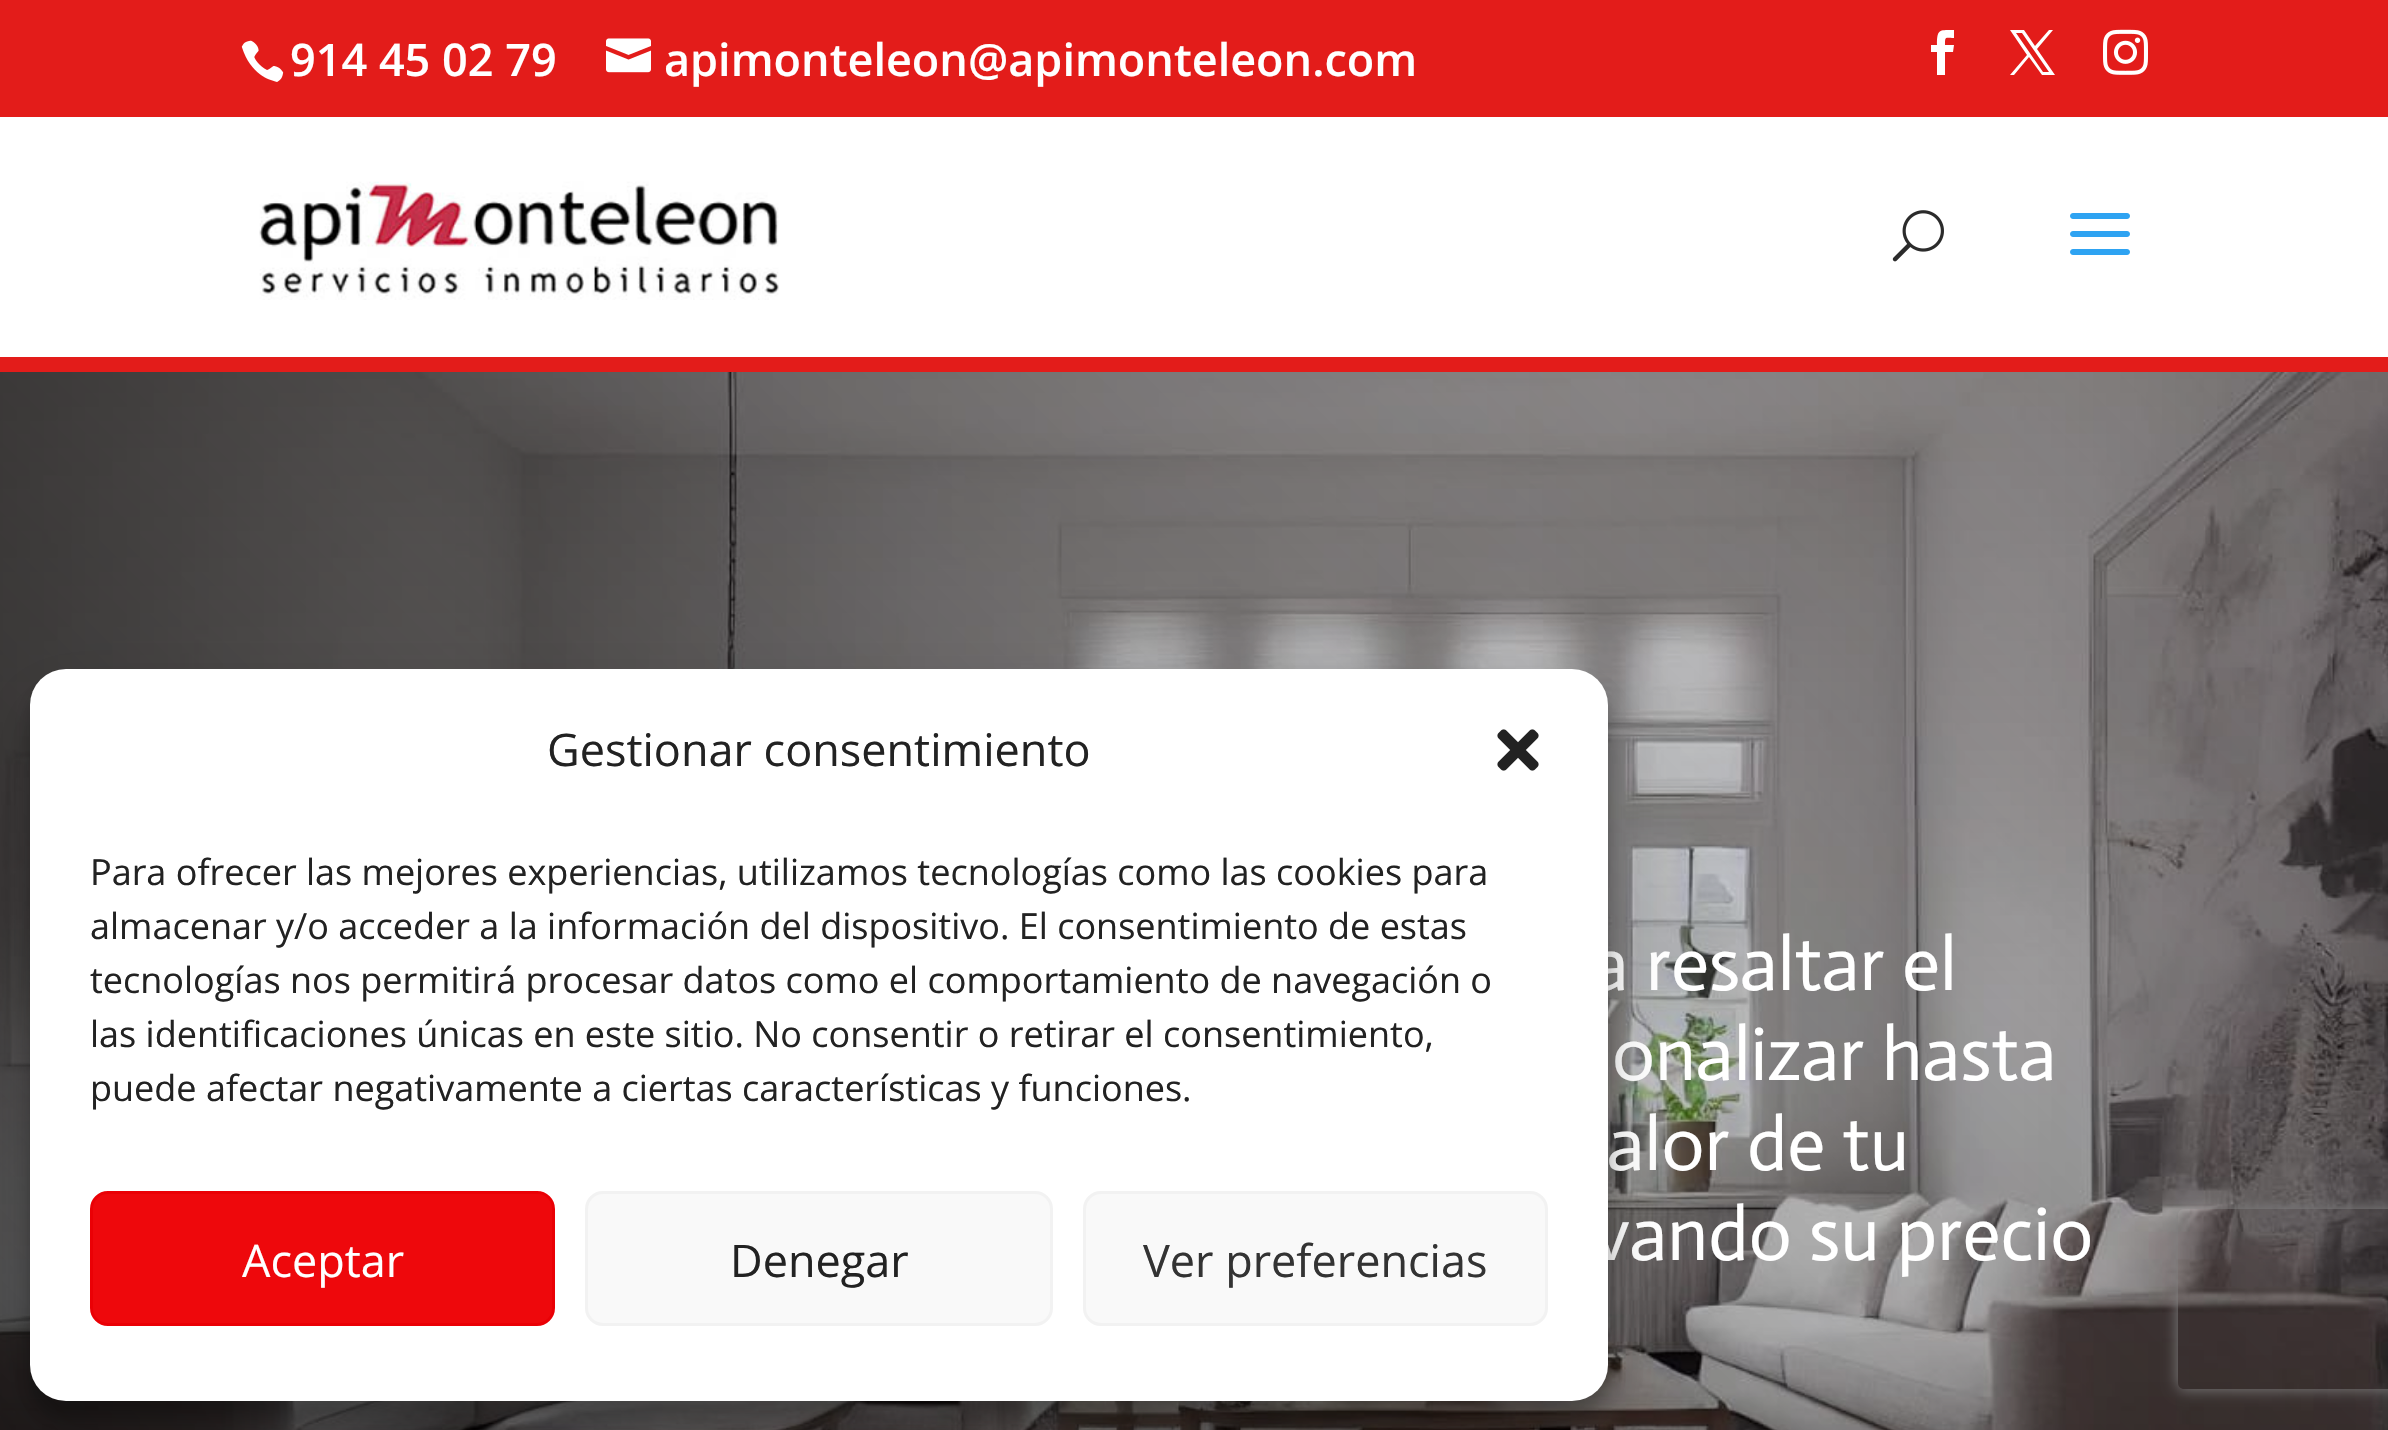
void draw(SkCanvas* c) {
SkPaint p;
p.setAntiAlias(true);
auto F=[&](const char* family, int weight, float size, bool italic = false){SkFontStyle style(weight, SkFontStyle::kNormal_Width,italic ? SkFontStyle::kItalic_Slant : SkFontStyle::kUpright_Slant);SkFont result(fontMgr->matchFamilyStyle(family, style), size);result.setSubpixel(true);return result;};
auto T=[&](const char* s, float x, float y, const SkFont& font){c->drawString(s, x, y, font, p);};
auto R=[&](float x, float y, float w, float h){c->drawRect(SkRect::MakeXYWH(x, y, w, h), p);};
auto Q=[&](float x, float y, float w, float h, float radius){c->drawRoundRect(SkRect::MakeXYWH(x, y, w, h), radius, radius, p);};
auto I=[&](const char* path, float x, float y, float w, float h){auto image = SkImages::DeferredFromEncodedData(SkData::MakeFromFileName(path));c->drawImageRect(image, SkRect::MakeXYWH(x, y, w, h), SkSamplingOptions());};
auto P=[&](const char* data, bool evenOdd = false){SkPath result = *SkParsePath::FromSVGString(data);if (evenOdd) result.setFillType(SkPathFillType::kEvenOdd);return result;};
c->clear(0xffffffff);
p.setColor(0xffe31c1a);
R(0,0,2388,117);
I("1.png",241,40,43,42);
auto f1 = F("Open Sans",600,45);
p.setColor(0xffffffff);
T("914 45 02 79",290,76,f1);
I("2.png",606,38,45,35);
T("apimonteleon@apimonteleon.com",664,76,f1);
c->drawPath(P("M1937 75h8v-23h8l1-7h-9c0-9 0-7 9-7v-8c-15 0-17-1-17 15h-6v7h6z"),p);
c->drawPath(P("M2010 30l17 25l-17 20h4l15-18l13 18h13l-18-26l16-19h-4l-14 16l-11-16zm6 3h6l27 39h-6z"),p);
I("3.png",2103,29,45,46);
p.setColor(0xffe31c1a);
R(0,357,2388,15);
I("4.png",259,181,520,119);
I("5.png",1892,210,52,52);
I("6.png",2070,213,60,42);
I("7.png",0,372,2388,1058);
auto f2 = F("Actor",400,75);
p.setColor(0xffffffff);
T("a resaltar el",1591,990,f2);
T("onalizar hasta",1612,1080,f2);
T("alor de tu",1607,1170,f2);
T("vando su precio",1593,1260,f2);
p.setColor(0x3b000000);
p.setMaskFilter(SkMaskFilter::MakeBlur(kNormal_SkBlurStyle, 9));
c->drawRoundRect(SkRect::MakeXYWH(30,687,1578,732),36,36,p);
p.setMaskFilter(nullptr);
p.setColor(0x30000000);
p.setMaskFilter(SkMaskFilter::MakeBlur(kNormal_SkBlurStyle, 30));
c->drawRoundRect(SkRect::MakeXYWH(30,699,1578,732),36,36,p);
p.setMaskFilter(nullptr);
p.setColor(0xffffffff);
Q(30,669,1578,732,36);
auto f3 = F("Open Sans",400,45);
p.setColor(0xff222222);
T("Gestionar consentimiento",547,766,f3);
I("8.png",1497,729,42,42);
auto f4 = F("Open Sans",400,36);
T("Para ofrecer las mejores experiencias, utilizamos tecnologías como las cookies para",90,885,f4);
T("almacenar y/o acceder a la información del dispositivo. El consentimiento de estas",90,939,f4);
T("tecnologías nos permitirá procesar datos como el comportamiento de navegación o",90,993,f4);
T("las identificaciones únicas en este sitio. No consentir o retirar el consentimiento,",90,1047,f4);
T("puede afectar negativamente a ciertas características y funciones.",90,1101,f4);
p.setColor(0xffee080c);
c->drawRoundRect(SkRect::MakeXYWH(91.5,1192.5,462,132),16.5,16.5,p);
p.setStroke(true);
p.setStrokeWidth(3);
p.setColor(0xffea0005);
c->drawRoundRect(SkRect::MakeXYWH(91.5,1192.5,462,132),16.5,16.5,p);
p.setStroke(false);
p.setColor(0xffffffff);
T("Aceptar",242,1277,f3);
p.setColor(0xfff9f9f9);
c->drawRoundRect(SkRect::MakeXYWH(586.5,1192.5,465,132),16.5,16.5,p);
p.setStroke(true);
p.setColor(0xfff2f2f2);
c->drawRoundRect(SkRect::MakeXYWH(586.5,1192.5,465,132),16.5,16.5,p);
p.setStroke(false);
p.setColor(0xff222222);
T("Denegar",730,1277,f3);
p.setColor(0xfff9f9f9);
c->drawRoundRect(SkRect::MakeXYWH(1084.5,1192.5,462,132),16.5,16.5,p);
p.setStroke(true);
p.setColor(0xfff2f2f2);
c->drawRoundRect(SkRect::MakeXYWH(1084.5,1192.5,462,132),16.5,16.5,p);
p.setStroke(false);
p.setColor(0xff333333);
T("Ver preferencias",1143,1277,f3);
c->save();
c->clipPath(P("M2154 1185h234v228h-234zm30 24h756c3.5 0 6 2.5 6 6v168c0 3.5-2.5 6-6 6h-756c-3.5 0-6-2.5-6-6v-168c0-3.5 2.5-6 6-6z",true),true);
p.setColor(0xff808080);
p.setMaskFilter(SkMaskFilter::MakeBlur(kNormal_SkBlurStyle, 7.5));
c->drawRoundRect(SkRect::MakeXYWH(2178,1209,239,180),6,6,p);
p.setMaskFilter(nullptr);
c->restore();
}
